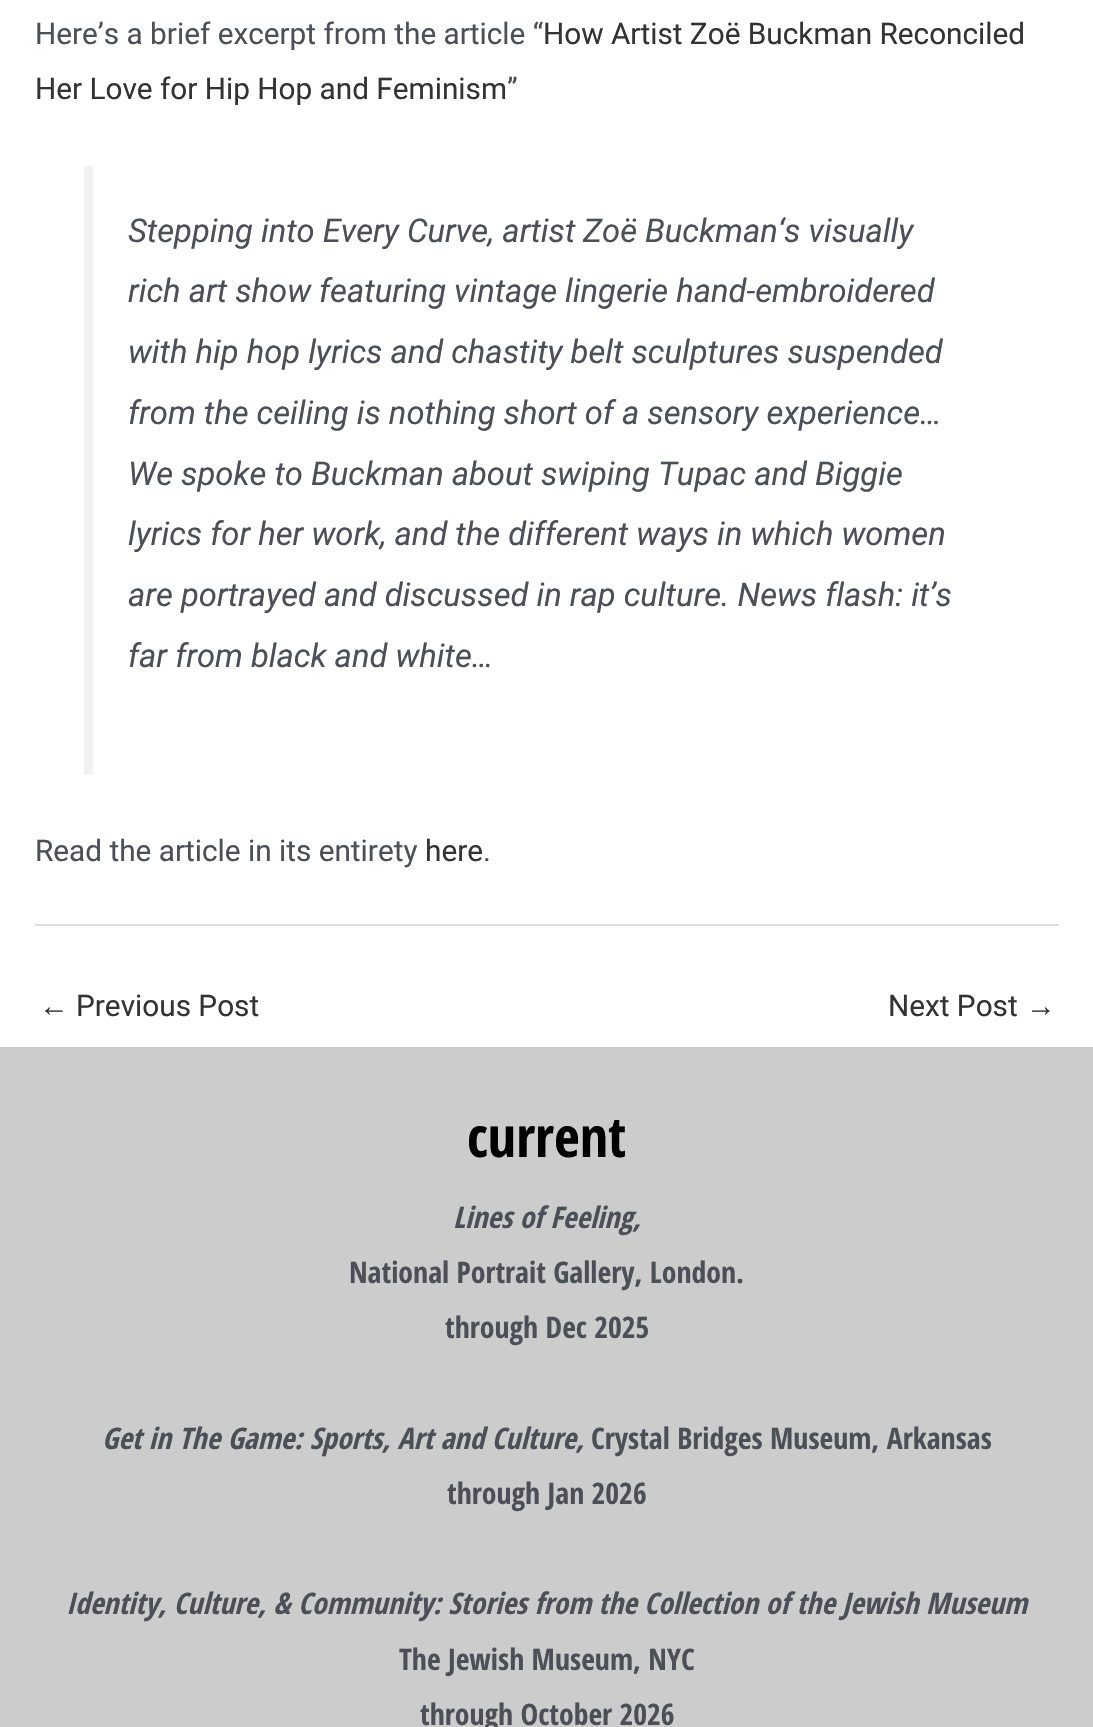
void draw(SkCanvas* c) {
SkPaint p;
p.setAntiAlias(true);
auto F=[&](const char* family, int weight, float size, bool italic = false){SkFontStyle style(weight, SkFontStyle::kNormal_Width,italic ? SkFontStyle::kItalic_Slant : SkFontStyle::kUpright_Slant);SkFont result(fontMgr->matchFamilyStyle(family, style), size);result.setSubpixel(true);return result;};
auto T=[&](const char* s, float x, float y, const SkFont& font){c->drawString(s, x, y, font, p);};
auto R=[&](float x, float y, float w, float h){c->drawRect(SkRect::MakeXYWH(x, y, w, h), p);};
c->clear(0xffffffff);
auto f1 = F("Roboto",400,29.75);
p.setColor(0xff4b4f58);
T("Here’s a brief excerpt from the article “",35,44,f1);
p.setColor(0xff333333);
T("How Artist Zoë Buckman Reconciled",543,44,f1);
T("Her Love for Hip Hop and Feminism",35,99,f1);
p.setColor(0xff4b4f58);
T("”",507,99,f1);
p.setColor(0xfff2f2f2);
R(84,166,9,609);
auto f2 = F("Roboto",400,32.75,true);
p.setColor(0xff4b4f58);
T("Stepping into Every Curve, artist",128,242,f2);
T("Zoë Buckman‘s visually",583,242,f2);
T("rich art show featuring vintage lingerie hand-embroidered",128,302,f2);
T("with hip hop lyrics and chastity belt sculptures suspended",128,363,f2);
T("from the ceiling is nothing short of a sensory experience…",128,424,f2);
T("We spoke to Buckman about swiping Tupac and Biggie",128,485,f2);
T("lyrics for her work, and the different ways in which women",128,545,f2);
T("are portrayed and discussed in rap culture. News flash: it’s",128,606,f2);
T("far from black and white…",128,667,f2);
T("Read the article in its entirety",35,861,f1);
p.setColor(0xff333333);
T("here",425,861,f1);
p.setColor(0xff4b4f58);
T(".",483,861,f1);
p.setColor(0xffdddddd);
R(35,924,1024,2);
auto f3 = F("Liberation Sans",400,29.75);
p.setColor(0xff333333);
T("←",39,1016,f3);
T("Previous Post",76,1016,f1);
T("Next Post",888,1016,f1);
T("→",1026,1016,f3);
p.setColor(0xffcccccc);
R(0,1047,1093,680);
auto f4 = F("Open Sans Condensed",700,56);
p.setColor(0xff000000);
T("current",467,1157,f4);
auto f5 = F("Open Sans Condensed",700,29.75,true);
p.setColor(0xff4b4f58);
T("Lines of Feeling,",453,1228,f5);
auto f6 = F("Open Sans Condensed",700,29.75);
T("National Portrait Gallery, London.",349,1283,f6);
T("through Dec 2025",445,1338,f6);
T("Get in The Game: Sports, Art and Culture,",102,1449,f5);
T("Crystal Bridges Museum, Arkansas",591,1449,f6);
T("through Jan 2026",447,1504,f6);
T("Identity, Culture, & Community: Stories from the Collection of the Jewish Museum",66,1614,f5);
T("The Jewish Museum, NYC",399,1670,f6);
T("through October 2026",420,1725,f6);
}
